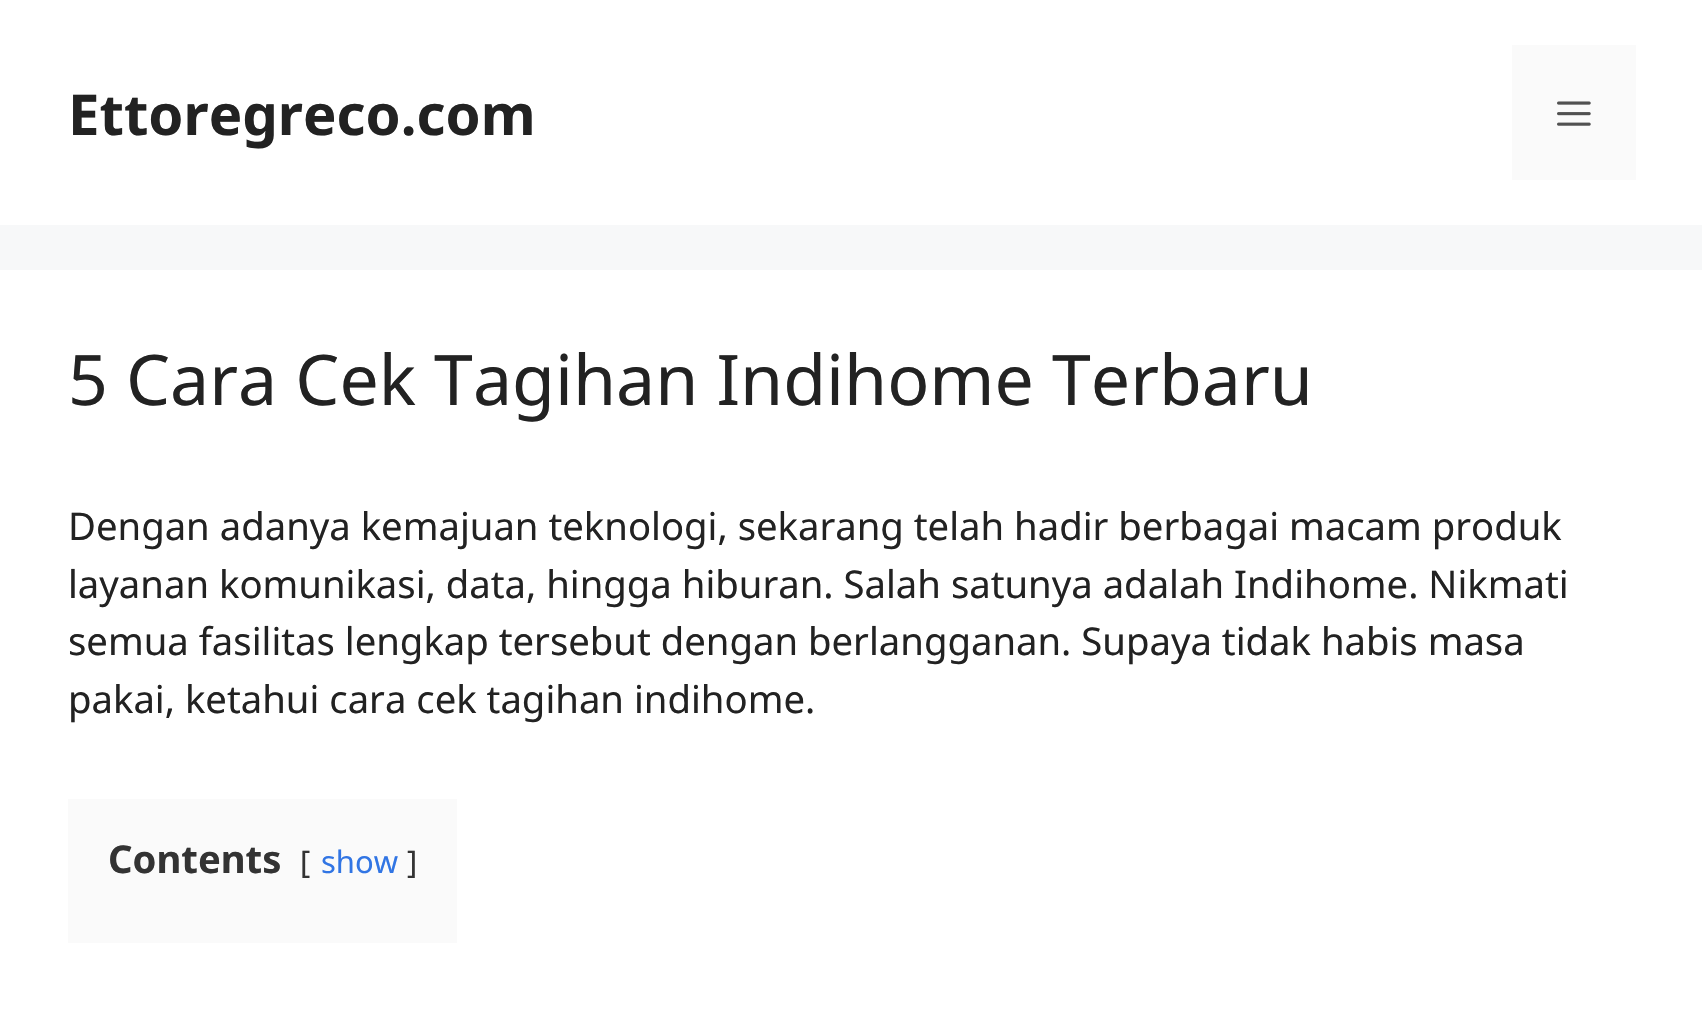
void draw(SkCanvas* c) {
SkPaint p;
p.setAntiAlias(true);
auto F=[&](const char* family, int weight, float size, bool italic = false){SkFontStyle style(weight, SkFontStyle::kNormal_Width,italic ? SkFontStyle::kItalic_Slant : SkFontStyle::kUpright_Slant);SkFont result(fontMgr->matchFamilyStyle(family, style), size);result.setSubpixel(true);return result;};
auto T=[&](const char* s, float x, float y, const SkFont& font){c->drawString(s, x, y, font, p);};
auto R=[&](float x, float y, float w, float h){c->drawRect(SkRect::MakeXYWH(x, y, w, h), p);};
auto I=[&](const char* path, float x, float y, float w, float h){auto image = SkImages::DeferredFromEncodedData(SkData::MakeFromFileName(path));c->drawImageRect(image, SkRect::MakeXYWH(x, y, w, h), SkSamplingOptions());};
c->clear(0xfff7f8f9);
p.setColor(0xffffffff);
R(0,0,1702,225);
auto f1 = F("Noto Sans",700,56.25);
p.setColor(0xff222222);
T("Ettoregreco.com",68,135,f1);
p.setColor(0xfffafafa);
R(1512,45,124,135);
I("1.png",1557,101,34,25);
p.setColor(0xffffffff);
R(0,270,1702,751);
auto f2 = F("Noto Sans",400,69.75);
p.setColor(0xff222222);
T("5 Cara Cek Tagihan Indihome Terbaru",68,405,f2);
auto f3 = F("Noto Sans",400,38.25);
T("Dengan adanya kemajuan teknologi, sekarang telah hadir berbagai macam produk",68,540,f3);
T("layanan komunikasi, data, hingga hiburan. Salah satunya adalah Indihome. Nikmati",68,598,f3);
T("semua fasilitas lengkap tersebut dengan berlangganan. Supaya tidak habis masa",68,655,f3);
T("pakai, ketahui cara cek tagihan indihome.",68,713,f3);
p.setColor(0xfffafafa);
R(68,799,389,144);
auto f4 = F("Noto Sans",700,38.25);
p.setColor(0xff333333);
T("Contents",108,873,f4);
auto f5 = F("Noto Sans",400,31);
T("[",300,873,f5);
p.setColor(0xff3175e4);
T("show",321,873,f5);
p.setColor(0xff333333);
T("]",407,873,f5);
}
